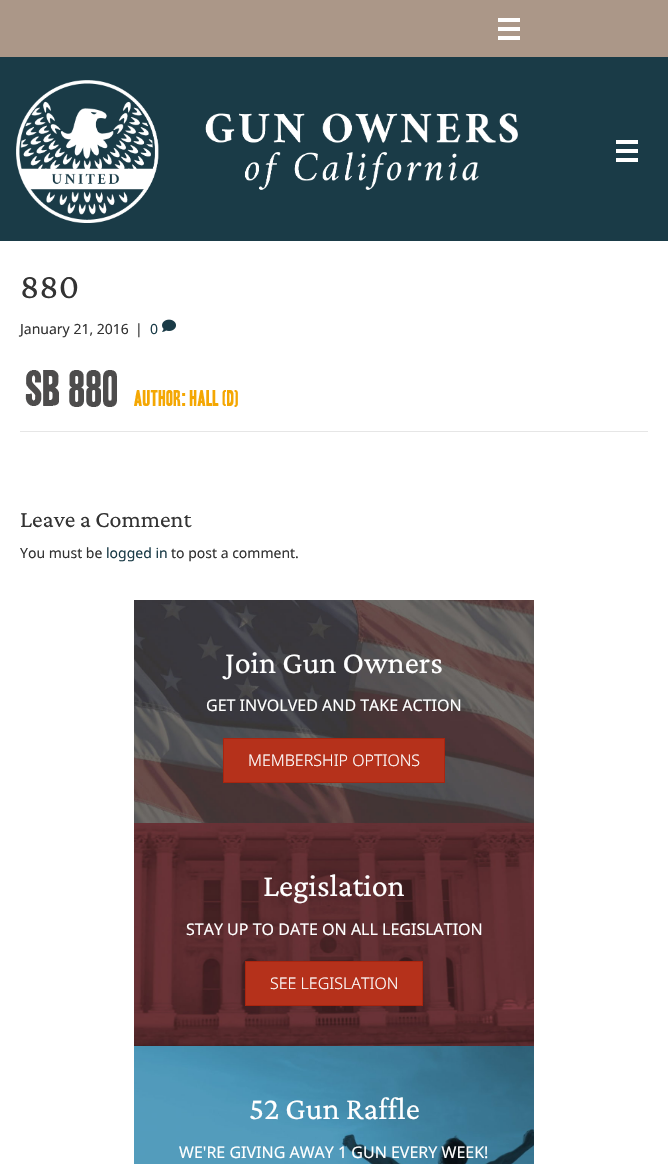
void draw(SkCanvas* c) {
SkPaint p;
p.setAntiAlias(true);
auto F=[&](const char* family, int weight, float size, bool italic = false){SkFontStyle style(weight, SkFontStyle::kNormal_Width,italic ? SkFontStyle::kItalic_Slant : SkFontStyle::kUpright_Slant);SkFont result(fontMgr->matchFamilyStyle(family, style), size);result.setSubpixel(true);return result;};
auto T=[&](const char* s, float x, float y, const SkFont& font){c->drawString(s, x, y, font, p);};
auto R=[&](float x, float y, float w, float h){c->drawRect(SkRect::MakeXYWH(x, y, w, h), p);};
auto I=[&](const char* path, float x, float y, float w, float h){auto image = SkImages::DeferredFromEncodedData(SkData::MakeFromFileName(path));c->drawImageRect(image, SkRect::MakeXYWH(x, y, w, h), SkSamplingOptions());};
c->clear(0xffffffff);
p.setColor(0xffab9788);
R(0,0,668,57);
p.setColor(0xffffffff);
R(498,18,22,4);
R(498,27,22,4);
R(498,36,22,4);
p.setColor(0xff1a3b47);
R(0,57,668,184);
I("1.png",16,80,502,143);
p.setColor(0xffffffff);
R(616,140,22,4);
R(616,149,22,4);
R(616,158,22,4);
auto f1 = F("Crimson Pro",400,36);
p.setColor(0xff333333);
T("880",20,298,f1);
auto f2 = F("Noto Sans",400,14);
T("January 21, 2016",20,334,f2);
T("|",135,334,f2);
p.setColor(0xff1a3b47);
T("0",150,334,f2);
I("2.png",162,319,14,13);
I("3.png",25,370,213,37);
p.setColor(0xffe6e6e6);
R(20,431,628,1);
auto f3 = F("Crimson Pro",400,24);
p.setColor(0xff333333);
T("Leave a Comment",20,527,f3);
T("You must be",20,558,f2);
p.setColor(0xff1a3b47);
T("logged in",106,558,f2);
p.setColor(0xff333333);
T("to post a comment.",171,558,f2);
I("4.png",134,600,400,223);
auto f4 = F("Crimson Pro",400,32);
p.setColor(0xffffffff);
T("Join Gun Owners",225,673,f4);
auto f5 = F("Noto Sans",400,16);
T("GET INVOLVED AND TAKE ACTION",206,711,f5);
p.setColor(0xffb5311b);
c->drawRect(SkRect::MakeXYWH(223.5,738.5,221,44),p);
p.setStroke(true);
p.setStrokeWidth(1);
p.setColor(0xffa9250f);
c->drawRect(SkRect::MakeXYWH(223.5,738.5,221,44),p);
auto f6 = F("Noto Sans",300,16);
p.setStroke(false);
p.setColor(0xffffffff);
T("MEMBERSHIP OPTIONS",248,766,f6);
I("5.png",134,823,400,223);
T("Legislation",263,896,f4);
T("STAY UP TO DATE ON ALL LEGISLATION",186,935,f5);
p.setColor(0xffb5311b);
c->drawRect(SkRect::MakeXYWH(245.5,961.5,177,44),p);
p.setStroke(true);
p.setColor(0xffa9250f);
c->drawRect(SkRect::MakeXYWH(245.5,961.5,177,44),p);
p.setStroke(false);
p.setColor(0xffffffff);
T("SEE LEGISLATION",270,989,f6);
I("6.png",134,1046,400,118);
T("52 Gun Raffle",249,1119,f4);
T("WE'RE GIVING AWAY 1 GUN EVERY WEEK!",179,1158,f5);
}
